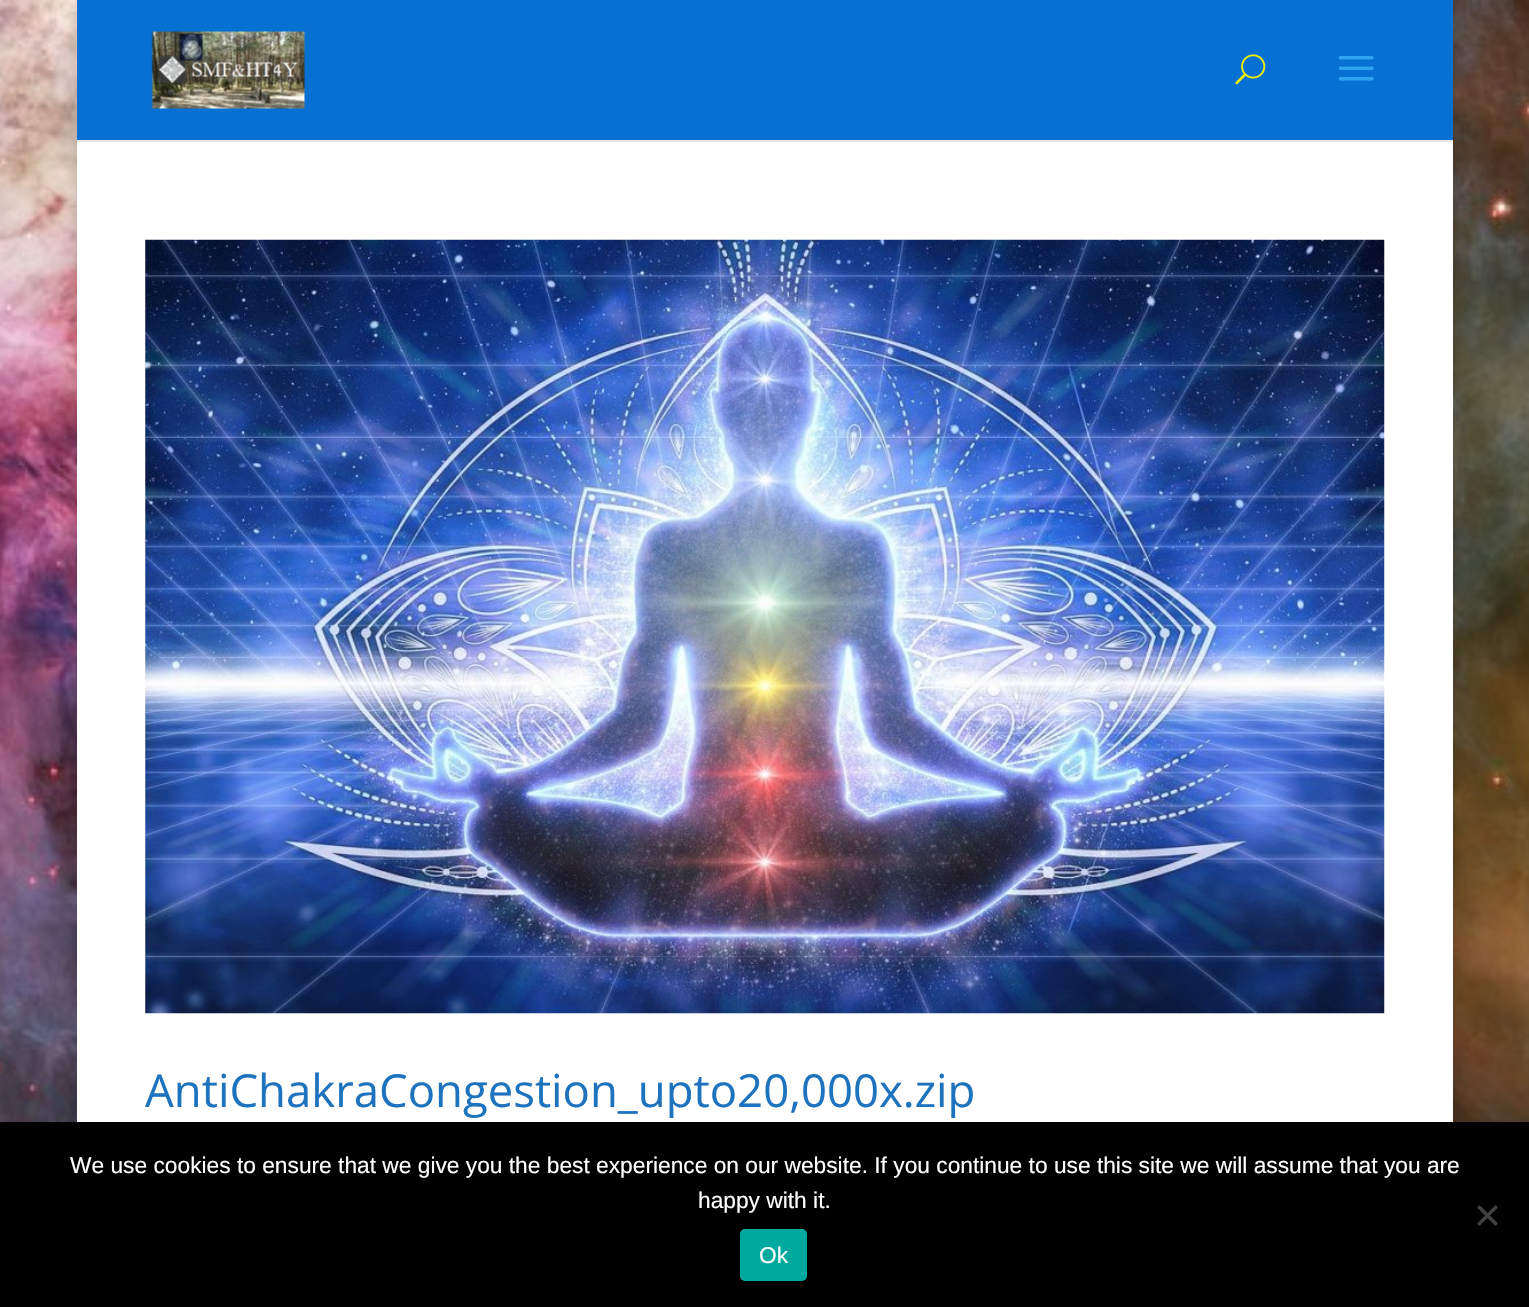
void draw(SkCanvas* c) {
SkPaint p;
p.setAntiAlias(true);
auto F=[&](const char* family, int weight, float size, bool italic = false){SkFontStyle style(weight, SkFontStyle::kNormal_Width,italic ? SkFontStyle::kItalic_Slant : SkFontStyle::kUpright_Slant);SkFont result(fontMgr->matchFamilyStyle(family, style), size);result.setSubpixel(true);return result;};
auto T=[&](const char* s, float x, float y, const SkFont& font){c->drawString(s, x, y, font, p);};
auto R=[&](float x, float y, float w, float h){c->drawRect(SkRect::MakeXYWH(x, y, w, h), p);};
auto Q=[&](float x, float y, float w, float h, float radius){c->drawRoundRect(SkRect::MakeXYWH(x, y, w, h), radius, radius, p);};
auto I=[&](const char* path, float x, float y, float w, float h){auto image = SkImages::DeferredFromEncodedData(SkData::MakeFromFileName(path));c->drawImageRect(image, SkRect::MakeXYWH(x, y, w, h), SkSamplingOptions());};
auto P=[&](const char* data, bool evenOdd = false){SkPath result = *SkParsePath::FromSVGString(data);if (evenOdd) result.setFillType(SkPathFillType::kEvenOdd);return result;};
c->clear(0xffffffff);
I("1.png",0,0,1529,1122);
p.setColor(0x33000000);
p.setMaskFilter(SkMaskFilter::MakeBlur(kNormal_SkBlurStyle, 9));
c->drawRect(SkRect::MakeXYWH(77,0,1376,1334),p);
p.setMaskFilter(nullptr);
p.setColor(0xffffffff);
R(77,140,1376,982);
p.setColor(0x1a000000);
c->drawPath(P("M77 140v2h1376v-140h-1v138z"),p);
p.setColor(0xff0670d3);
R(77,0,1376,140);
I("2.png",151,31,154,78);
I("3.png",1235,54,31,31);
I("4.png",1338,56,36,25);
I("5.png",145,239,1240,775);
auto f1 = F("Open Sans",400,45.5);
p.setColor(0xff1e73be);
T("AntiChakraCongestion_upto20,000x.zip",145,1107,f1);
p.setColor(0xff000000);
R(0,1122,1529,185);
auto f2 = F("Liberation Sans",400,22.75);
p.setColor(0xffffffff);
T("We use cookies to ensure that we give you the best experience on our website. If you continue to use this site we will assume that you are",70,1173,f2);
T("happy with it.",698,1208,f2);
p.setColor(0xff404040);
c->drawPath(P("M1495.5 1205l2.5 2.5l-18.5 18.5l-2.5-2.5z"),p);
c->drawPath(P("M1477 1207.5l2.5-2.5l18.5 18.5l-2.5 2.5z"),p);
p.setColor(0xff00a99d);
Q(740,1229,67,52,5);
p.setColor(0xffffffff);
T("Ok",759,1263,f2);
}
